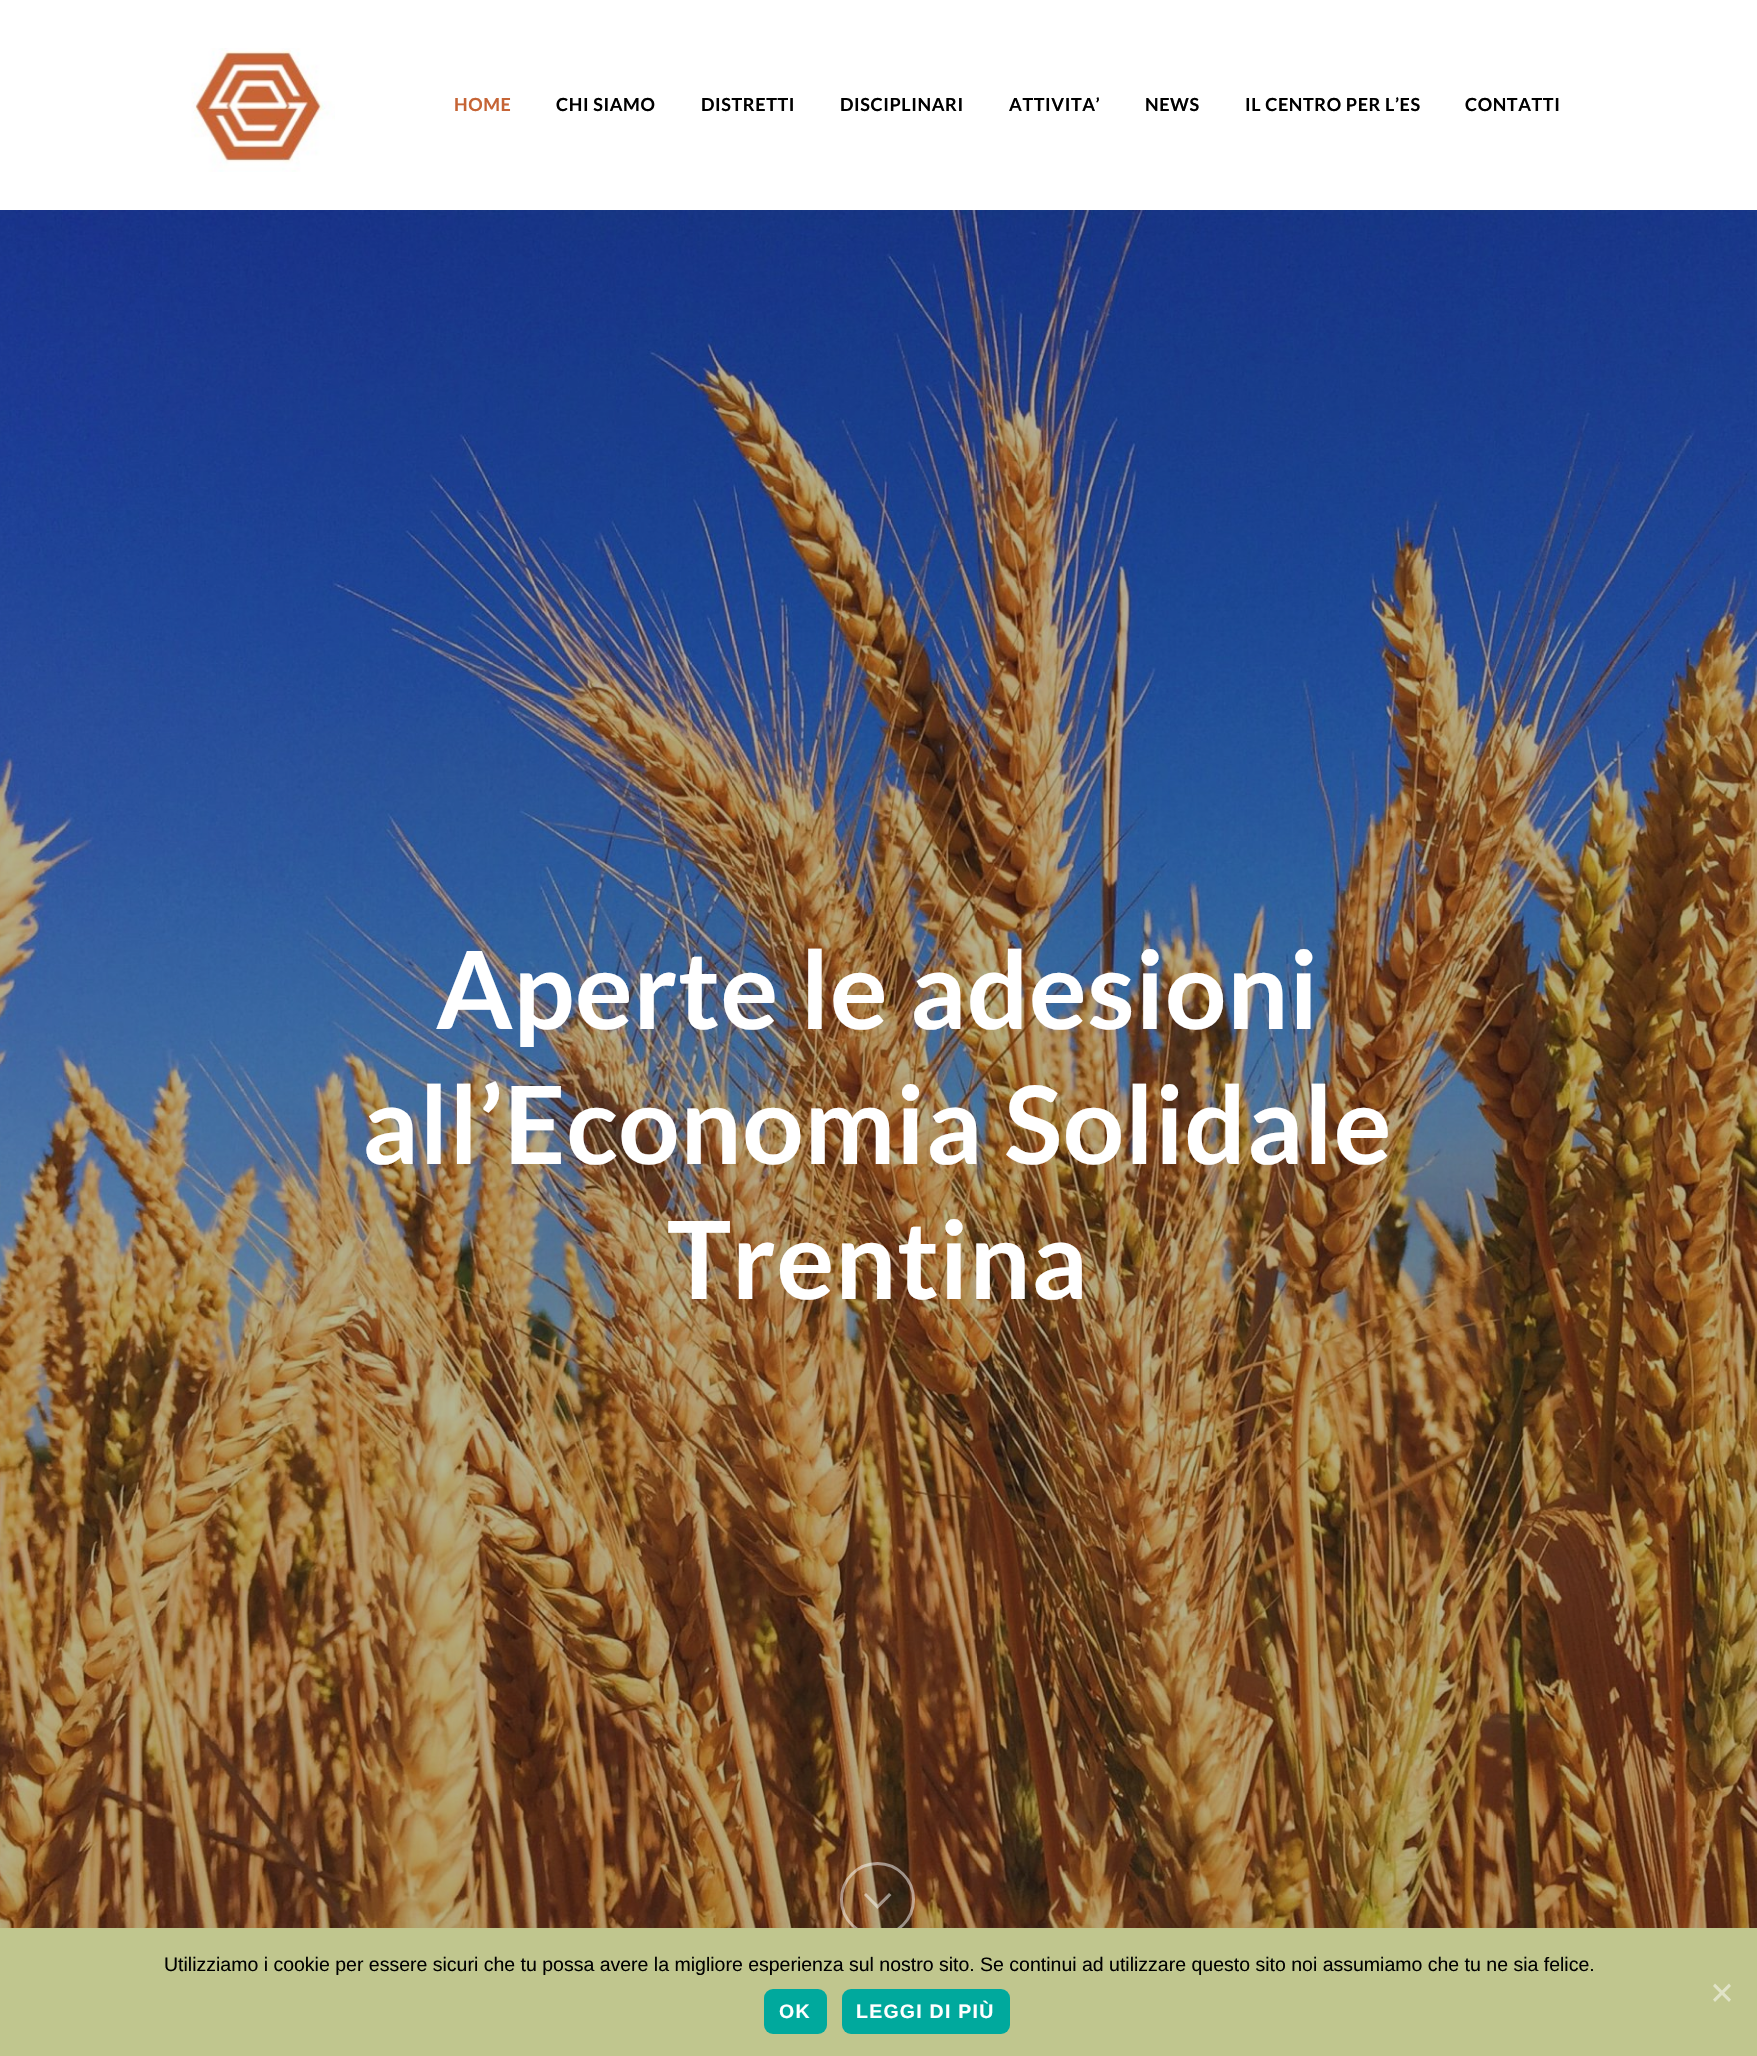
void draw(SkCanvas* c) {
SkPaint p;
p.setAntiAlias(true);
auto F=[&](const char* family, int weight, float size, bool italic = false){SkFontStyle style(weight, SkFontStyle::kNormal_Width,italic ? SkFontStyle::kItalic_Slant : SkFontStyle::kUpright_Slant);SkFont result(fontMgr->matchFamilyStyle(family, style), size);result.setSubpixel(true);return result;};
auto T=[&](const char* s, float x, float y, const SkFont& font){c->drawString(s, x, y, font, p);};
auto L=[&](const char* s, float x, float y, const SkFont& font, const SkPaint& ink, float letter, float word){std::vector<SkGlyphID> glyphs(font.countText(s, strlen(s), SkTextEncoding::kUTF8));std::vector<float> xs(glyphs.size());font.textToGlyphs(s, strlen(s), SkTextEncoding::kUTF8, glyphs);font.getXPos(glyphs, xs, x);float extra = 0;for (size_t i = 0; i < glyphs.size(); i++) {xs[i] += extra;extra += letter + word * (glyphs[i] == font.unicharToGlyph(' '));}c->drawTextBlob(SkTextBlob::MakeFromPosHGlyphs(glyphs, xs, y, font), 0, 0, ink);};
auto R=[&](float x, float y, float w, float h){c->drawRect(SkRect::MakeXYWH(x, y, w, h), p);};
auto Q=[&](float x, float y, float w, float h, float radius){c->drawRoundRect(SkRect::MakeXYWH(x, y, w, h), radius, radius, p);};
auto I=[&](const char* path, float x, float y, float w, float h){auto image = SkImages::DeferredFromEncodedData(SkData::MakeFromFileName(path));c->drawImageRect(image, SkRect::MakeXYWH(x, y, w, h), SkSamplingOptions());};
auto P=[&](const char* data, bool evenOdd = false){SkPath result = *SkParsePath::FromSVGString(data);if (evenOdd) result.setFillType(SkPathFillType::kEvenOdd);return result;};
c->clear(0xffffffff);
I("1.png",191,48,144,124);
auto f1 = F("Lato",700,18);
p.setColor(0xffc66435);
L("HOME",454,111,f1,p,.6,0);
p.setColor(0xff000000);
L("CHI SIAMO",556,111,f1,p,.6,0);
L("DISTRETTI",701,111,f1,p,.6,0);
L("DISCIPLINARI",840,111,f1,p,.6,0);
L("ATTIVITA’",1009,111,f1,p,.6,0);
L("NEWS",1145,111,f1,p,.6,0);
L("IL CENTRO PER L’ES",1245,111,f1,p,.6,0);
L("CONTATTI",1465,111,f1,p,.6,0);
I("2.png",0,210,1757,1718);
auto f2 = F("Lato",700,108);
p.setColor(0xffffffff);
L("Aperte le adesioni",436,1029,f2,p,.6,0);
L("all’Economia Solidale",362,1164,f2,p,.6,0);
L("Trentina",667,1299,f2,p,.6,0);
p.setStroke(true);
p.setStrokeWidth(3);
p.setColor(0x80ffffff);
c->drawCircle(877.5,1899.5,36,p);
p.setStroke(false);
c->drawPath(P("M877.5 1909l-13.5-14l2-2l11.5 11.5l11.5-11.5l2.5 2z"),p);
p.setColor(0xffc0c68e);
R(0,1928,1757,128);
auto f3 = F("Liberation Sans",400,19.5);
p.setColor(0xff000000);
T("Utilizziamo i cookie per essere sicuri che tu possa avere la migliore esperienza sul nostro sito. Se continui ad utilizzare questo sito noi assumiamo che tu ne sia felice.",164,1971,f3);
p.setColor(0xffe0e3c7);
c->drawPath(P("M1729 1983.5l2 2.5l-16 16l-2-2.5z"),p);
c->drawPath(P("M1713 1986l2-2.5l16 16l-2 2.5z"),p);
p.setColor(0xff00a99d);
Q(764,1989,63,45,9);
auto f4 = F("Liberation Sans",700,19.5);
p.setColor(0xffffffff);
L("OK",779,2018,f4,p,1.25,0);
p.setColor(0xff00a99d);
Q(842,1989,168,45,9);
p.setColor(0xffffffff);
L("LEGGI DI PIÙ",856,2018,f4,p,1.25,0);
}
